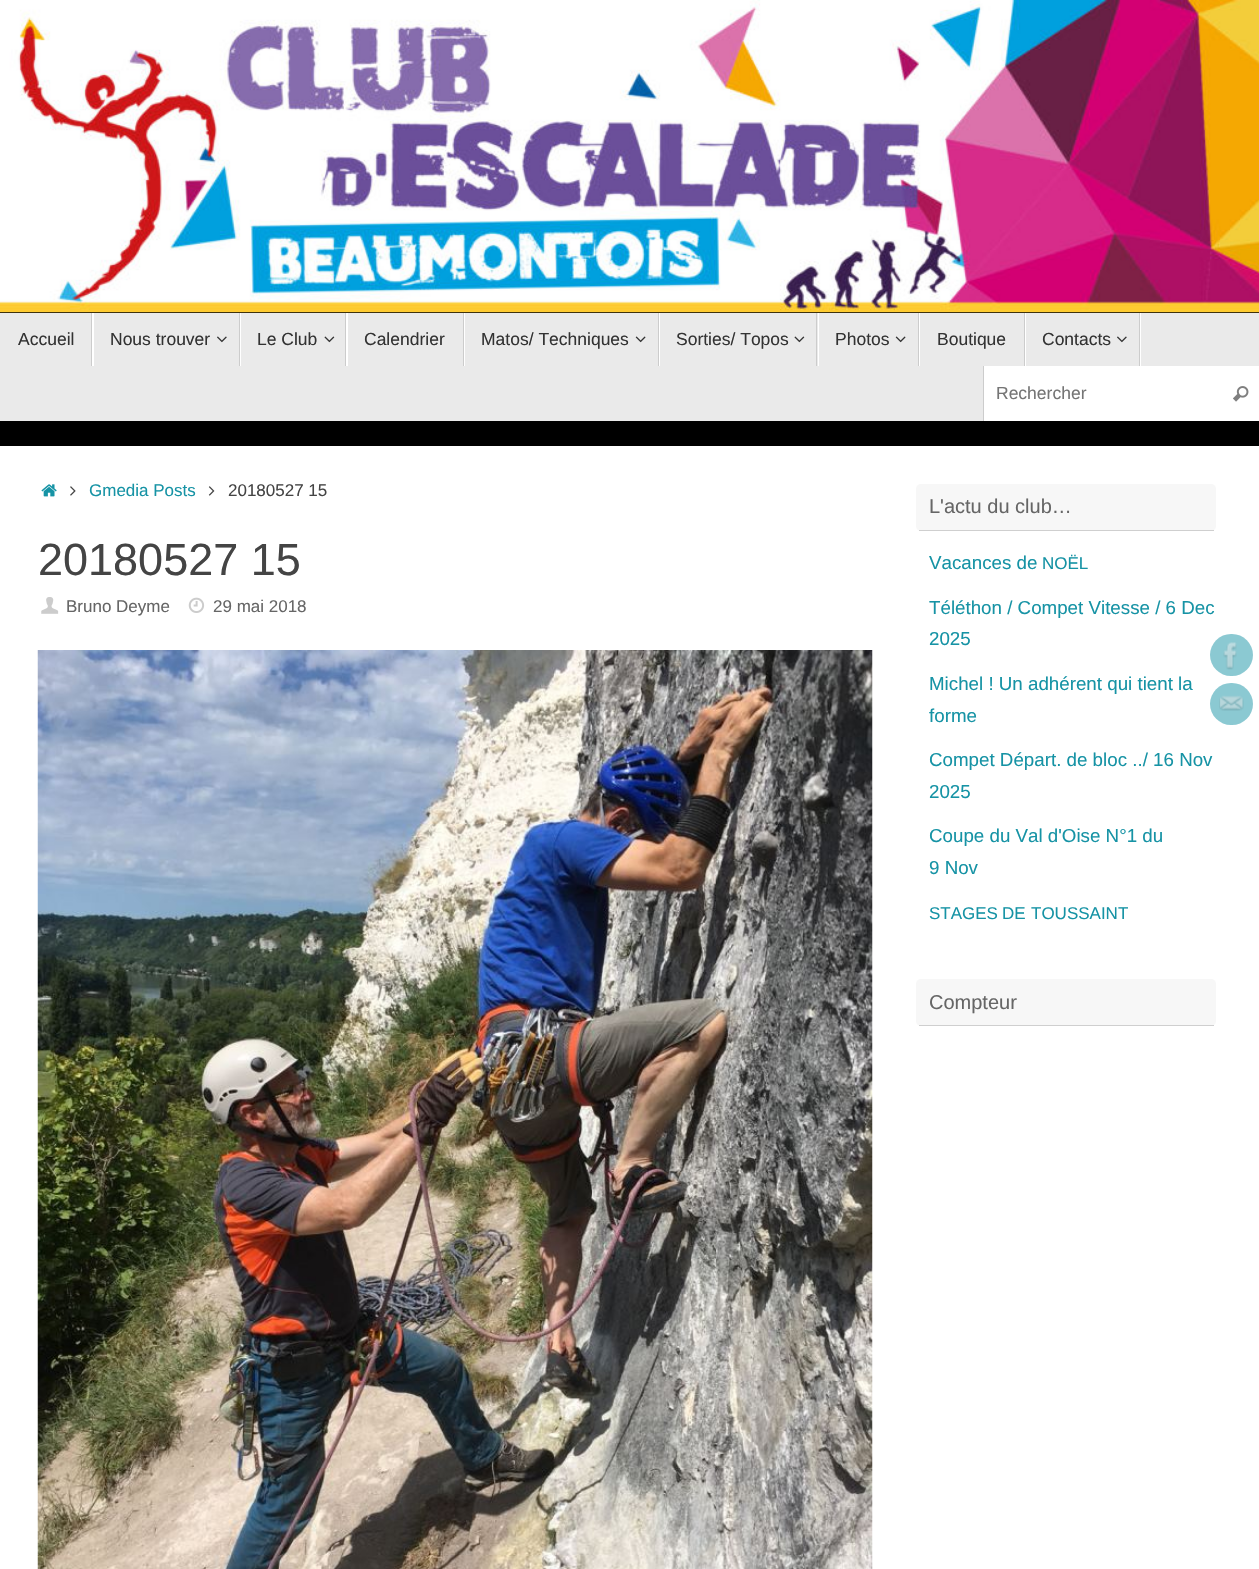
void draw(SkCanvas* c) {
SkPaint p;
p.setAntiAlias(true);
auto F=[&](const char* family, int weight, float size, bool italic = false){SkFontStyle style(weight, SkFontStyle::kNormal_Width,italic ? SkFontStyle::kItalic_Slant : SkFontStyle::kUpright_Slant);SkFont result(fontMgr->matchFamilyStyle(family, style), size);result.setSubpixel(true);return result;};
auto T=[&](const char* s, float x, float y, const SkFont& font){c->drawString(s, x, y, font, p);};
auto R=[&](float x, float y, float w, float h){c->drawRect(SkRect::MakeXYWH(x, y, w, h), p);};
auto Q=[&](float x, float y, float w, float h, float radius){c->drawRoundRect(SkRect::MakeXYWH(x, y, w, h), radius, radius, p);};
auto I=[&](const char* path, float x, float y, float w, float h){auto image = SkImages::DeferredFromEncodedData(SkData::MakeFromFileName(path));c->drawImageRect(image, SkRect::MakeXYWH(x, y, w, h), SkSamplingOptions());};
c->clear(0xff000000);
I("1.png",0,0,1259,313);
p.setColor(0xffeaeaea);
R(0,313,1259,108);
p.setColor(0xffffffff);
R(92,313,2,53);
p.setColor(0xffcccccc);
R(91,313,1,53);
auto f1 = F("Liberation Sans",400,17.5);
p.setColor(0xff333333);
T("Accueil",18,345,f1);
p.setColor(0xffffffff);
R(240,313,1,53);
p.setColor(0xffcccccc);
R(239,313,1,53);
p.setColor(0xff333333);
T("Nous trouver",110,345,f1);
I("2.png",217,336,10,7);
p.setColor(0xffffffff);
R(346,313,2,53);
p.setColor(0xffcccccc);
R(345,313,1,53);
p.setColor(0xff333333);
T("Le Club",257,345,f1);
I("3.png",324,336,11,7);
p.setColor(0xffffffff);
R(464,313,1,53);
p.setColor(0xffcccccc);
R(463,313,1,53);
p.setColor(0xff333333);
T("Calendrier",364,345,f1);
p.setColor(0xffffffff);
R(659,313,1,53);
p.setColor(0xffcccccc);
R(658,313,1,53);
p.setColor(0xff333333);
T("Matos/ Techniques",481,345,f1);
I("4.png",635,336,11,7);
p.setColor(0xffffffff);
R(818,313,1,53);
p.setColor(0xffcccccc);
R(816,313,1,53);
p.setColor(0xff333333);
T("Sorties/ Topos",676,345,f1);
I("3.png",794,336,11,7);
p.setColor(0xffffffff);
R(919,313,1,53);
p.setColor(0xffcccccc);
R(918,313,1,53);
p.setColor(0xff333333);
T("Photos",835,345,f1);
I("4.png",895,336,11,7);
p.setColor(0xffffffff);
R(1025,313,1,53);
p.setColor(0xffcccccc);
R(1024,313,1,53);
p.setColor(0xff333333);
T("Boutique",937,345,f1);
p.setColor(0xffffffff);
R(1140,313,1,53);
p.setColor(0xffcccccc);
R(1139,313,1,53);
p.setColor(0xff333333);
T("Contacts",1042,345,f1);
I("2.png",1117,336,10,7);
p.setColor(0xffffffff);
R(984,366,275,55);
p.setColor(0xffcccccc);
R(983,366,1,55);
p.setColor(0xff757575);
T("Rechercher",996,399,f1);
I("5.png",1233,386,16,16);
p.setColor(0xffffffff);
R(0,446,1259,1123);
I("6.png",41,484,16,13);
I("7.png",70,486,6,10);
auto f2 = F("Liberation Sans",400,17);
p.setColor(0xff1693a5);
T("Gmedia Posts",89,496,f2);
I("8.png",208,486,7,10);
p.setColor(0xff444444);
T("20180527 15",228,496,f2);
auto f3 = F("Liberation Sans",400,45);
T("20180527 15",38,575,f3);
I("9.png",41,597,18,17);
p.setColor(0xff666666);
T("Bruno Deyme",66,612,f2);
I("10.png",188,597,17,16);
T("29 mai 2018",213,612,f2);
I("11.png",37,650,836,919);
p.setColor(0xfff7f7f7);
Q(916,484,300,47,5);
p.setColor(0xffcfcfcf);
R(919,530,295,1);
auto f4 = F("Liberation Sans",400,20);
p.setColor(0xff666666);
T("L'actu du club…",929,513,f4);
auto f5 = F("Liberation Sans",400,18.75);
p.setColor(0xff1693a5);
T("Vacances de",929,569,f5);
T("NOËL",1042,569,f2);
T("Téléthon / Compet Vitesse / 6 Dec",929,614,f5);
T("2025",929,645,f5);
T("Michel ! Un adhérent qui tient la",929,690,f5);
T("forme",929,722,f5);
T("Compet Départ. de bloc ../ 16 Nov",929,766,f5);
T("2025",929,798,f5);
T("Coupe du Val d'Oise N°1 du",929,842,f5);
T("9 Nov",929,874,f5);
T("STAGES",929,919,f2);
T("DE",1002,919,f2);
T("TOUSSAINT",1031,919,f2);
p.setColor(0xfff7f7f7);
Q(916,979,300,47,5);
p.setColor(0xffcfcfcf);
R(919,1025,295,1);
p.setColor(0xff666666);
T("Compteur",929,1009,f4);
p.setColor(0xff8bc9d2);
Q(1210,634,43,42,21);
I("12.png",1223,642,14,28);
Q(1210,683,43,42,21);
I("13.png",1219,695,25,16);
}
